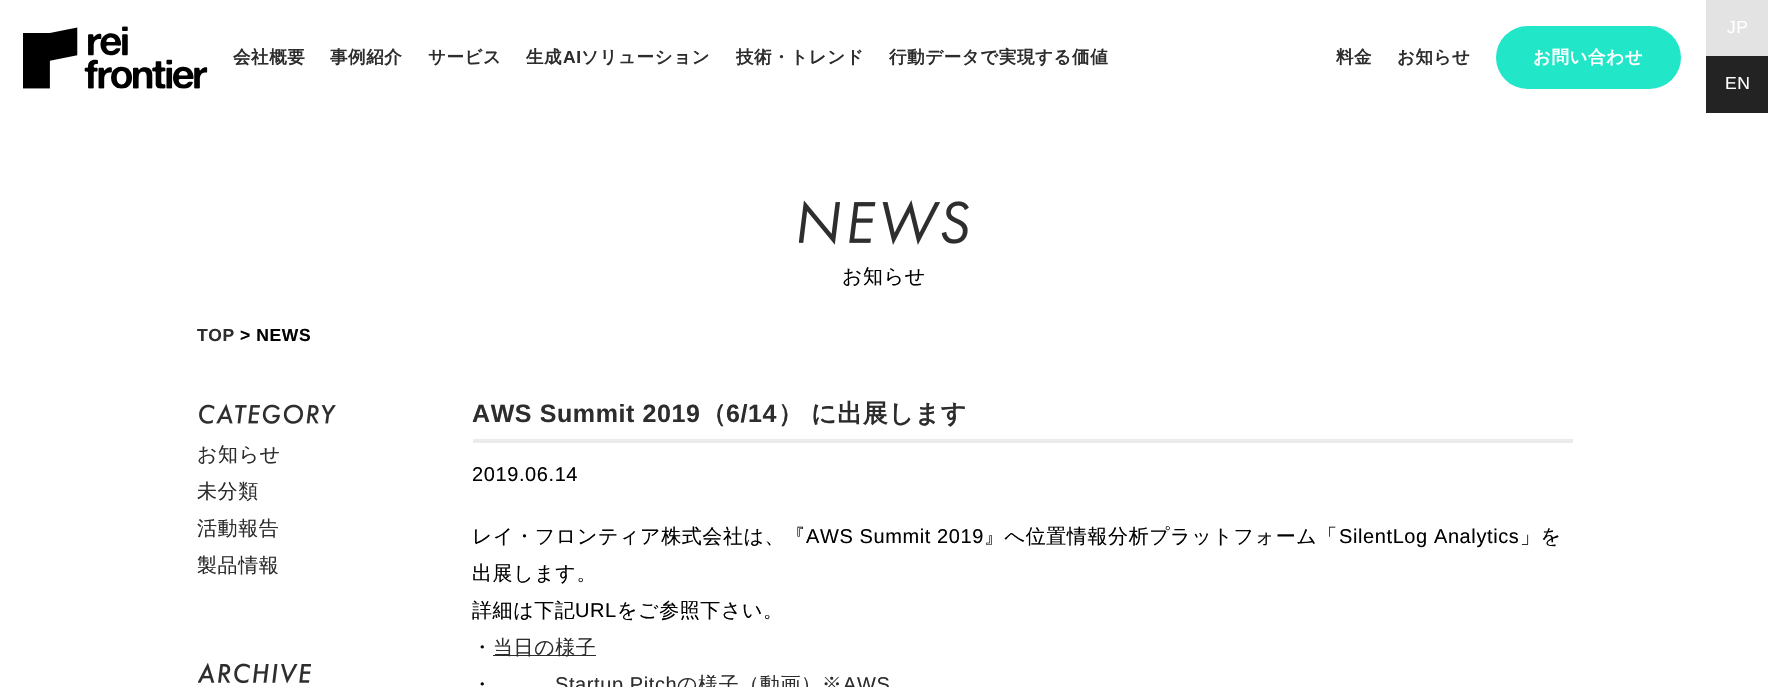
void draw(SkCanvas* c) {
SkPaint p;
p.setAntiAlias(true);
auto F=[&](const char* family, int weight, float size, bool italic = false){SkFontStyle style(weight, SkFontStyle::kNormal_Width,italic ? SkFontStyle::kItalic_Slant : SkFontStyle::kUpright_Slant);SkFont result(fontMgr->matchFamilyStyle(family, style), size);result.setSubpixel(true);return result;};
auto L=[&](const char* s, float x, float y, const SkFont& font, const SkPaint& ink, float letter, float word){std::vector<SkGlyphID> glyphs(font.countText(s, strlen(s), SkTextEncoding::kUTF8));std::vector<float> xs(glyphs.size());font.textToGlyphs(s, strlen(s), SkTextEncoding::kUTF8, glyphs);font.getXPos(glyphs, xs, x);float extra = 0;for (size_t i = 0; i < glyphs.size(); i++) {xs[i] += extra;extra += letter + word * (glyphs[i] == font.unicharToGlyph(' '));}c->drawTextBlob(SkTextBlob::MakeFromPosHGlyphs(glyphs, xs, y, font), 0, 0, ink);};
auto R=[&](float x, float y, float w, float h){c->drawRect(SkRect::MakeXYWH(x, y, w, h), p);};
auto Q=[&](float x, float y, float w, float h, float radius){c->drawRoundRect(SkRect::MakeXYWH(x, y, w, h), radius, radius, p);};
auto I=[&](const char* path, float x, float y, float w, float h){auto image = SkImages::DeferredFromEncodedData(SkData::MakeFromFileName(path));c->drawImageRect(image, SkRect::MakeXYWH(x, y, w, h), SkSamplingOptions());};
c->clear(0xffffffff);
I("1.png",23,26,185,63);
auto f1 = F("WenQuanYi Zen Hei",700,17.5);
p.setColor(0xff2d2d2d);
L("会社概要",233,63,f1,p,.6,0);
L("事例紹介",330,63,f1,p,.6,0);
L("サービス",428,63,f1,p,.6,0);
L("生成",526,63,f1,p,.6,0);
auto f2 = F("Liberation Sans",700,17.5);
L("AI",563,63,f2,p,.6,0);
L("ソリューション",581,63,f1,p,.6,0);
L("技術・トレンド",736,63,f1,p,.6,0);
L("行動データで実現する価値",889,63,f1,p,.6,0);
L("料金",1336,63,f1,p,.6,0);
L("お知らせ",1397,63,f1,p,.6,0);
p.setColor(0xff21e6c8);
Q(1496,26,185,63,31.5);
p.setColor(0xffffffff);
L("お問い合わせ",1533,63,f1,p,.6,0);
p.setColor(0xffe3e3e3);
R(1706,0,62,56);
auto f3 = F("Liberation Sans",400,17.5);
p.setColor(0xffffffff);
L("JP",1727,33,f3,p,.6,0);
p.setColor(0xff242323);
R(1706,56,62,57);
p.setColor(0xffffffff);
L("EN",1725,89,f3,p,.6,0);
I("2.png",799,200,170,45);
auto f4 = F("WenQuanYi Zen Hei",500,20);
p.setColor(0xff020202);
L("お知らせ",842,283,f4,p,.6,0);
p.setColor(0xff2d2d2d);
L("TOP",197,341,f2,p,.6,0);
p.setColor(0xff020202);
L("> NEWS",240,341,f2,p,.6,0);
I("3.png",199,404,137,20);
p.setColor(0xff2d2d2d);
L("お知らせ",197,461,f4,p,.6,0);
L("未分類",197,498,f4,p,.6,0);
L("活動報告",197,535,f4,p,.6,0);
L("製品情報",197,572,f4,p,.6,0);
I("4.png",198,663,113,21);
p.setColor(0xffebebeb);
R(473,439,1100,4);
auto f5 = F("Liberation Sans",700,25);
p.setColor(0xff2d2d2d);
L("AWS Summit 2019",472,422,f5,p,.6,0);
auto f6 = F("WenQuanYi Zen Hei",700,25);
L("（",701,422,f6,p,.6,0);
L("6/14",726,422,f5,p,.6,0);
L("）",778,422,f6,p,.6,0);
L("に出展します",811,422,f6,p,.6,0);
auto f7 = F("Liberation Sans",400,20);
p.setColor(0xff020202);
L("2019.06.14",472,481,f7,p,.6,0);
L("レイ・フロンティア株式会社は、『",472,543,f4,p,.6,0);
L("AWS Summit 2019",806,543,f7,p,.6,0);
L("』へ位置情報分析プラットフォーム「",984,543,f4,p,.6,0);
L("SilentLog Analytics",1339,543,f7,p,.6,0);
L("」を",1520,543,f4,p,.6,0);
L("出展します。",472,580,f4,p,.6,0);
L("詳細は下記",472,617,f4,p,.6,0);
L("URL",575,617,f7,p,.6,0);
L("をご参照下さい。",617,617,f4,p,.6,0);
L("・",472,654,f4,p,.6,0);
p.setColor(0xff2d2d2d);
R(493,655,103,1);
L("当日の様子",493,654,f4,p,.6,0);
p.setColor(0xff020202);
L("・",472,691,f4,p,.6,0);
p.setColor(0xff2d2d2d);
L("Startup Pitch",555,691,f7,p,.6,0);
L("の様子（動画）※",677,691,f4,p,.6,0);
L("AWS",843,691,f7,p,.6,0);
}
